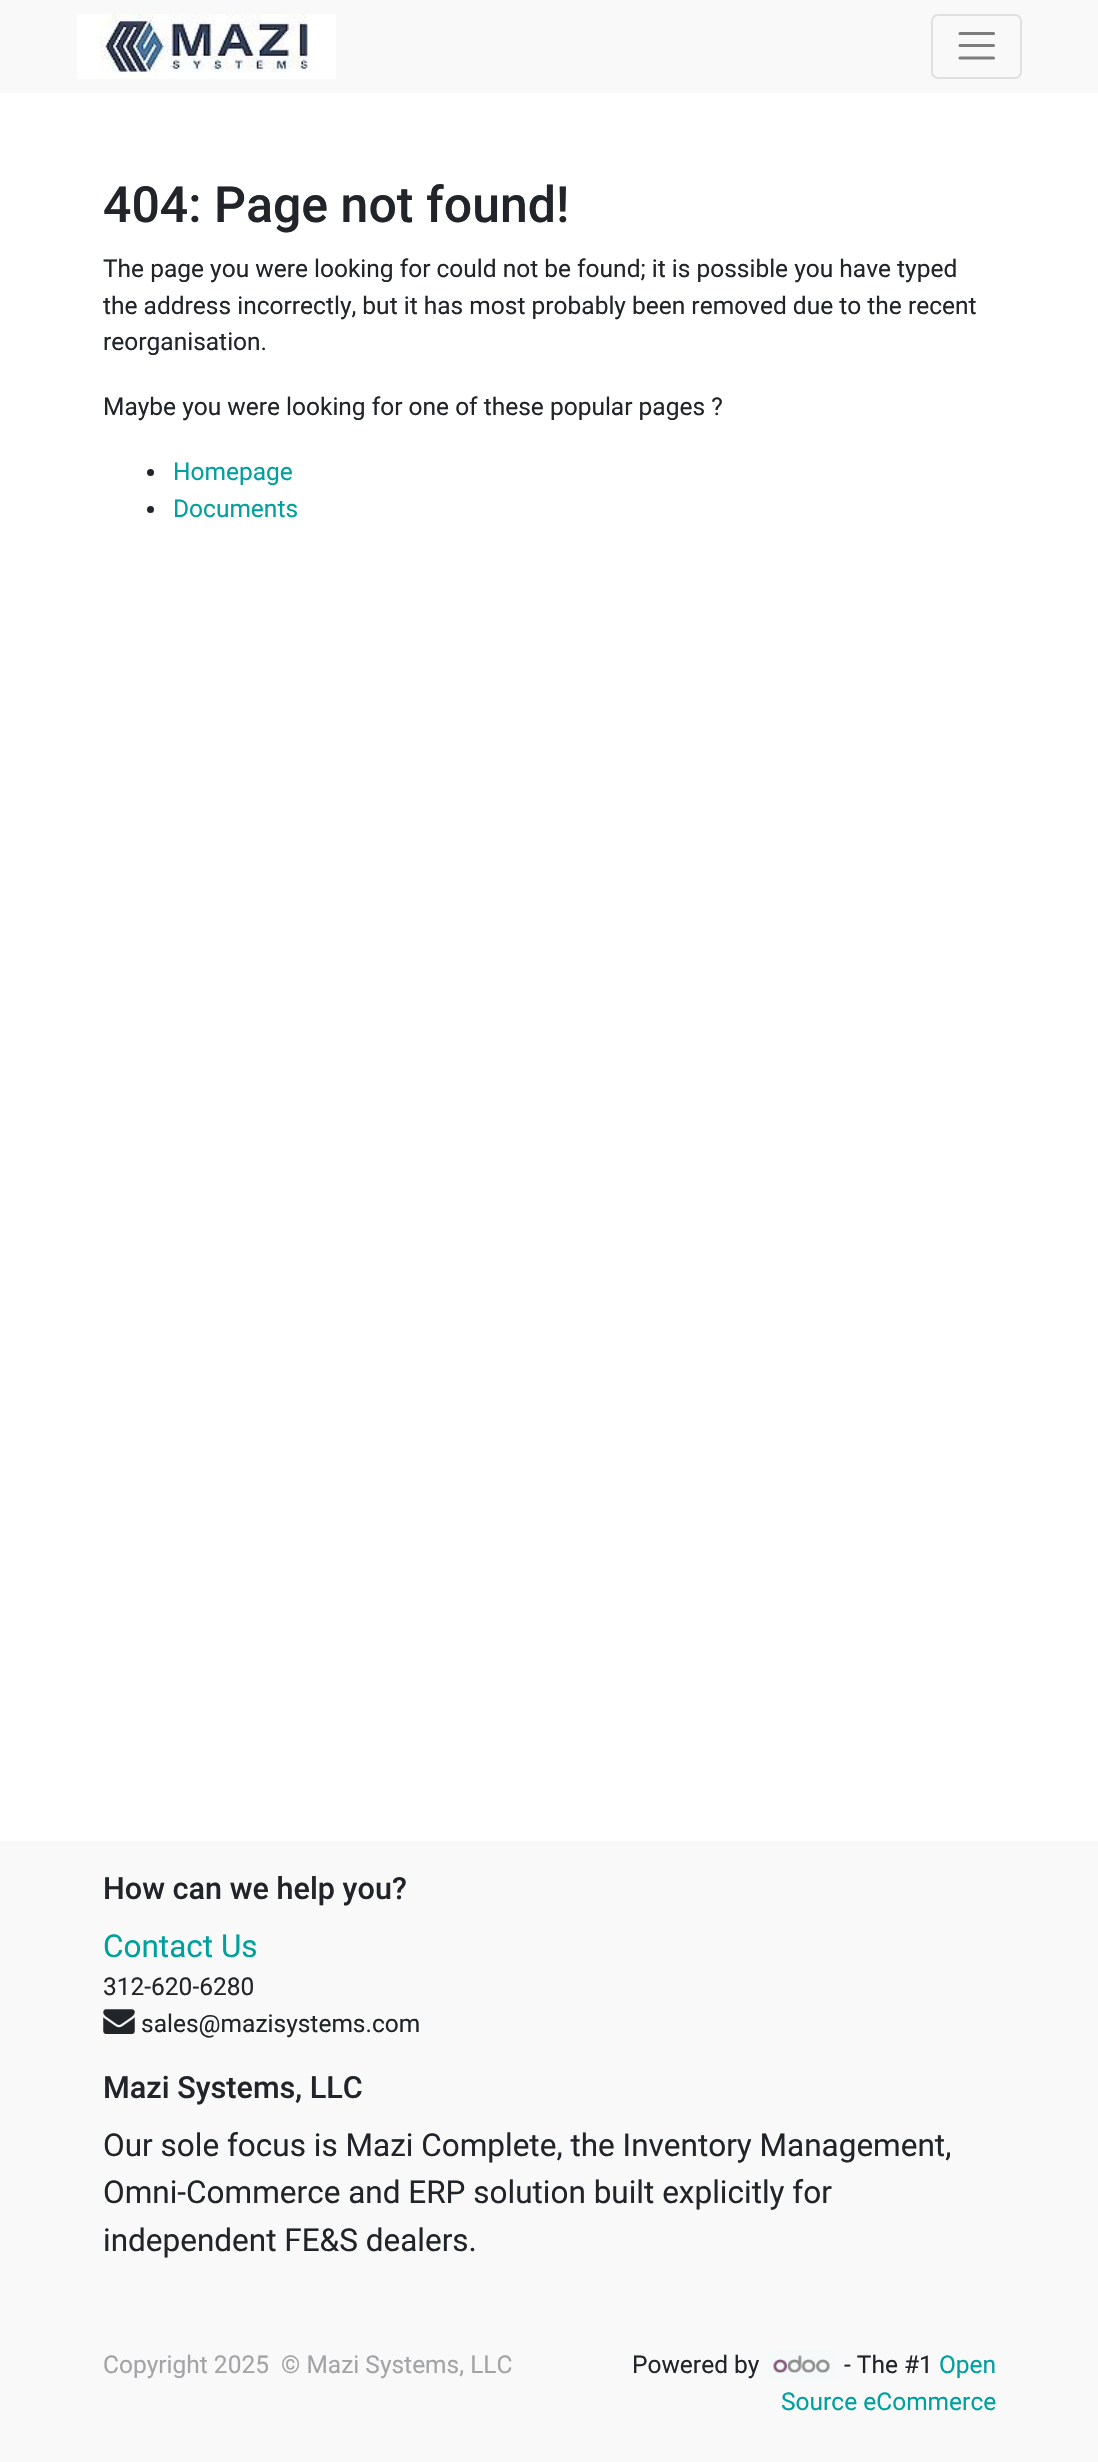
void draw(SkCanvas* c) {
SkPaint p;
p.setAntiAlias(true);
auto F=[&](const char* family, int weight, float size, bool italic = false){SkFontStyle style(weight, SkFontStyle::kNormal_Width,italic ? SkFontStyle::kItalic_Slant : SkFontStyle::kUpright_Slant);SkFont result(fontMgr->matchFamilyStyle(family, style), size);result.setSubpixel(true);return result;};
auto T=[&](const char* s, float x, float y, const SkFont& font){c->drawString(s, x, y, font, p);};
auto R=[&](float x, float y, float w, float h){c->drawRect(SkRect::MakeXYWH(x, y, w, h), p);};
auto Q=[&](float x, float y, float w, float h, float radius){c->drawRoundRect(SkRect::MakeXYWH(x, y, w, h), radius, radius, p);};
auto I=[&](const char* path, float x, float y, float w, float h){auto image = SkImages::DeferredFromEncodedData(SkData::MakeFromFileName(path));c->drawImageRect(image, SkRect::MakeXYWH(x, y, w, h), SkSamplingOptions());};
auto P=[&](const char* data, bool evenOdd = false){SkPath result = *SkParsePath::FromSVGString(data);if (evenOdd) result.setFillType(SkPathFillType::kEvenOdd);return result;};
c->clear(0xffffffff);
p.setColor(0xfff9f9f9);
R(0,0,1098,93);
I("1.png",77,14,259,65);
p.setStroke(true);
p.setStrokeWidth(2);
p.setColor(0xffe0e0e0);
c->drawRoundRect(SkRect::MakeXYWH(932,15,89,63),6,6,p);
p.setStrokeWidth(3.1);
p.setStrokeCap(SkPaint::kRound_Cap);
p.setColor(0xff7d7d7d);
c->drawPath(P("M960 33.5h33.5m-33.5 12h33.5m-33.5 12.5h33.5"),p);
auto f1 = F("Roboto",500,50);
p.setStroke(false);
p.setColor(0xff212529);
T("404: Page not found!",103,222,f1);
auto f2 = F("Roboto",400,24.5);
T("The page you were looking for could not be found; it is possible you have typed",103,277,f2);
T("the address incorrectly, but it has most probably been removed due to the recent",103,314,f2);
T("reorganisation.",103,350,f2);
T("Maybe you were looking for one of these popular pages ?",103,415,f2);
c->drawCircle(150.5,472.5,3.5,p);
p.setColor(0xff00a09d);
T("Homepage",173,480,f2);
p.setColor(0xff212529);
c->drawCircle(150.5,509.5,3.5,p);
p.setColor(0xff00a09d);
T("Documents",173,517,f2);
p.setColor(0xfff9f9f9);
R(0,1841,1098,621);
auto f3 = F("Roboto",500,30.6);
p.setColor(0xff212529);
T("How can we help you?",103,1899,f3);
auto f4 = F("Roboto",400,31.5);
p.setColor(0xff00a09d);
T("Contact Us",103,1957,f4);
p.setColor(0xff212529);
T("312-620-6280",103,1995,f2);
I("2.png",103,2009,32,25);
T("sales@mazisystems.com",141,2032,f2);
T("Mazi Systems, LLC",103,2098,f3);
T("Our sole focus is Mazi Complete, the Inventory Management,",103,2156,f4);
T("Omni-Commerce and ERP solution built explicitly for",103,2203,f4);
T("independent FE&S dealers.",103,2251,f4);
p.setColor(0xffa3a4a6);
T("Copyright 2025  © Mazi Systems, LLC",103,2373,f2);
p.setColor(0xff212529);
T("Powered by",632,2373,f2);
p.setColor(0xfff6f9f9);
Q(767,2350,71,32,7);
I("3.png",773,2355,57,18);
p.setColor(0xff212529);
T("- The #1",844,2373,f2);
p.setColor(0xff00a09d);
T("Open",939,2373,f2);
T("Source eCommerce",781,2410,f2);
}
